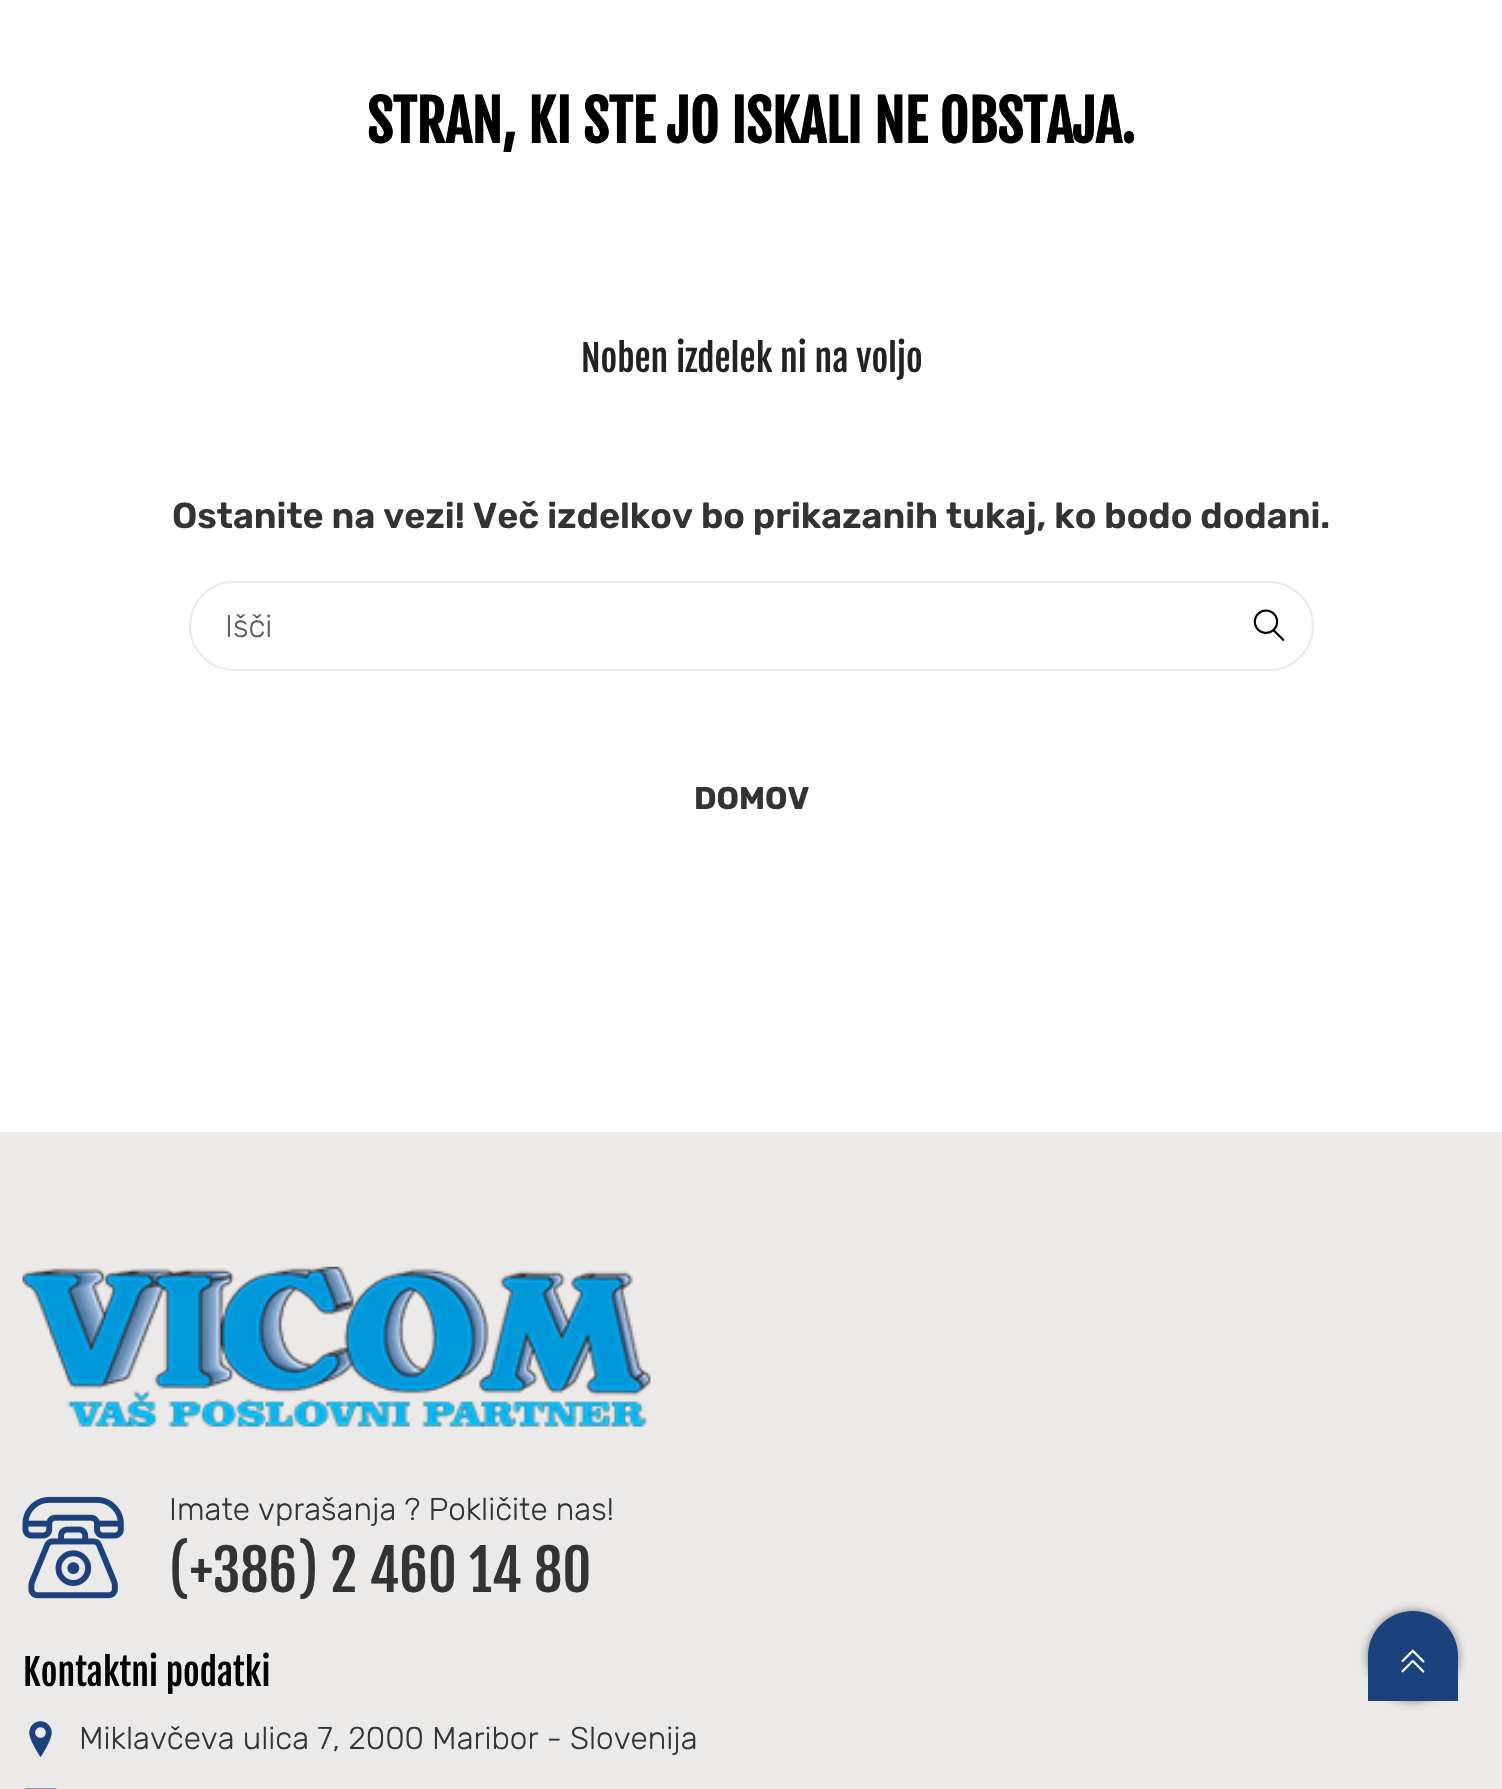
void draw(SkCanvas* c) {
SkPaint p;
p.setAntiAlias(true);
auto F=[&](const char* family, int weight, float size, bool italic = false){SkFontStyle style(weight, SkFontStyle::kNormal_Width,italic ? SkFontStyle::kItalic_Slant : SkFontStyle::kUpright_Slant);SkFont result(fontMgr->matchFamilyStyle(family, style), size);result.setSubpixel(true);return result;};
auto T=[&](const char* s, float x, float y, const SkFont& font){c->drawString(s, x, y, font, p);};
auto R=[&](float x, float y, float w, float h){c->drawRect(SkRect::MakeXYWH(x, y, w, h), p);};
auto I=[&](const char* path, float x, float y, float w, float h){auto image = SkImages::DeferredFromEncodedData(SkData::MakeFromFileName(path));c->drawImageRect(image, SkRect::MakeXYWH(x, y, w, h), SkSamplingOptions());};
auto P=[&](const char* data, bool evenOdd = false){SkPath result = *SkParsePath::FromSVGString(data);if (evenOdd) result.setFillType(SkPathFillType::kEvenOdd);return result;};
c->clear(0xffffffff);
auto f1 = F("Fjalla One",700,56.25);
p.setColor(0xff000000);
T("STRAN, KI STE JO ISKALI NE OBSTAJA.",367,143,f1);
auto f2 = F("Fjalla One",400,36);
p.setColor(0xff222222);
T("Noben izdelek ni na voljo",581,372,f2);
auto f3 = F("Rubik",600,36);
p.setColor(0xff333333);
T("Ostanite na vezi! Več izdelkov bo prikazanih tukaj, ko bodo dodani.",172,528,f3);
p.setStroke(true);
p.setStrokeWidth(2);
p.setColor(0xffeaeaea);
c->drawRoundRect(SkRect::MakeXYWH(190,582,1123,88),44,44,p);
auto f4 = F("Rubik",300,31.5);
p.setStroke(false);
p.setColor(0xff5c5c5c);
T("Išči",225,637,f4);
I("1.png",1253,609,32,32);
auto f5 = F("Rubik",700,31.5);
p.setColor(0xff333333);
T("DOMOV",694,809,f5);
p.setColor(0xffece9e9);
R(0,1132,1502,657);
I("2.png",22,1266,629,162);
I("3.png",22,1496,102,103);
p.setColor(0xff333333);
T("Imate vprašanja ? Pokličite nas!",169,1520,f4);
auto f6 = F("Fjalla One",400,56.25);
T("(+386) 2 460 14 80",169,1592,f6);
p.setColor(0xff000000);
T("Kontaktni podatki",23,1686,f2);
I("4.png",29,1721,23,37);
p.setColor(0xff333333);
T("Miklavčeva ulica 7, 2000 Maribor - Slovenija",79,1749,f4);
I("5.png",24,1788,33,1);
p.setColor(0x4d000000);
p.setMaskFilter(SkMaskFilter::MakeBlur(kNormal_SkBlurStyle, 3.5));
c->drawRoundRect(SkRect::MakeXYWH(1366,1609,94,94),47,47,p);
p.setMaskFilter(nullptr);
p.setColor(0xff1b427d);
c->drawPath(P("M1413 1611c25 0 45 20 45 45v45h-90v-45c0-25 20-45 45-45z"),p);
I("6.png",1401,1649,24,24);
}
